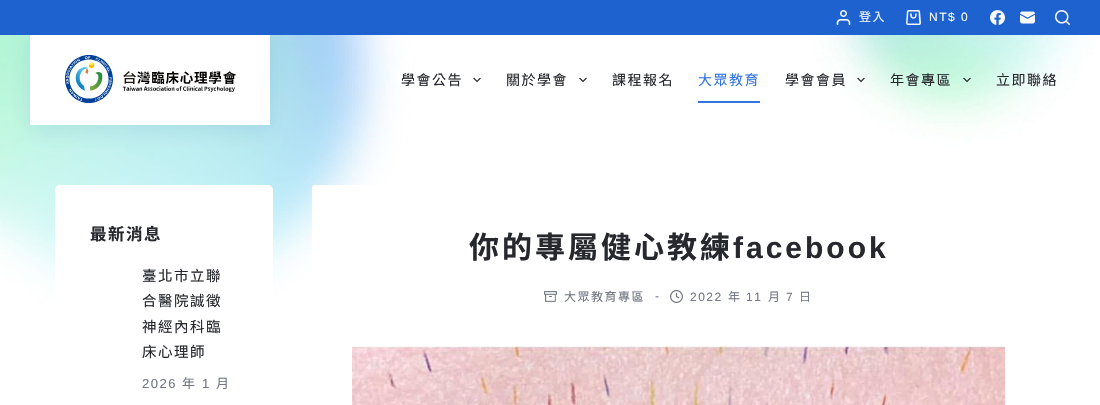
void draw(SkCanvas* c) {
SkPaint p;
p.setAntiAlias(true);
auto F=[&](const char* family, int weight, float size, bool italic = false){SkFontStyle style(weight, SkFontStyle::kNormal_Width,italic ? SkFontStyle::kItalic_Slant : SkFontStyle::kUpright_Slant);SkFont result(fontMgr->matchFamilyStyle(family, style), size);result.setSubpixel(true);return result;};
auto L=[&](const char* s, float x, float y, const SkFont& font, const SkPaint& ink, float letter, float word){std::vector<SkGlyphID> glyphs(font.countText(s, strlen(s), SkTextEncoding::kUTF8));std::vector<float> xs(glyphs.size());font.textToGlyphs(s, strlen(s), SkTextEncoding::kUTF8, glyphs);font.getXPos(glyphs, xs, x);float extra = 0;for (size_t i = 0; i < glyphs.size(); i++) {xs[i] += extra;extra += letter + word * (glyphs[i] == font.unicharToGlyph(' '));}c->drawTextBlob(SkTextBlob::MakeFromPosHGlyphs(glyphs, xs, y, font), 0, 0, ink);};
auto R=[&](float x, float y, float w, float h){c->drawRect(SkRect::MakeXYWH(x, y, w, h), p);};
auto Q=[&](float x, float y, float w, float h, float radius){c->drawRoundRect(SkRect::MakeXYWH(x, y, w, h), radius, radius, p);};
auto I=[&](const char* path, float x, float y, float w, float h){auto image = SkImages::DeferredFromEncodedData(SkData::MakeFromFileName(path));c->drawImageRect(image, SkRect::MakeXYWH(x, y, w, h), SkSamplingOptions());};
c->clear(0xffffffff);
I("1.png",0,35,1095,283);
p.setColor(0x1a004386);
p.setMaskFilter(SkMaskFilter::MakeBlur(kNormal_SkBlurStyle, 10));
c->drawRect(SkRect::MakeXYWH(30,40,240,90),p);
p.setMaskFilter(nullptr);
p.setColor(0xff1d62ce);
R(0,0,1100,35);
I("2.png",836,10,15,15);
auto f1 = F("Noto Sans CJK TC",400,12);
p.setColor(0xfff7f8fc);
L("登入",859,21,f1,p,1.5,0);
I("3.png",906,10,15,15);
auto f2 = F("Liberation Sans",400,12);
L("NT$ 0",929,21,f2,p,1.5,0);
I("4.png",990,10,15,15);
I("5.png",1020,11,15,13);
I("6.png",1055,10,15,15);
I("7.png",30,35,240,90);
auto f3 = F("Noto Sans CJK TC",400,14);
p.setColor(0xff26282d);
L("學會公告",401,85,f3,p,1.5,0);
I("8.png",473,77,8,6);
L("關於學會",506,85,f3,p,1.5,0);
I("8.png",579,77,8,6);
L("課程報名",612,85,f3,p,1.5,0);
p.setColor(0xff3275de);
L("大眾教育",698,85,f3,p,1.5,0);
R(698,101,62,2);
p.setColor(0xff26282d);
L("學會會員",785,85,f3,p,1.5,0);
I("9.png",857,77,8,6);
L("年會專區",890,85,f3,p,1.5,0);
I("10.png",963,77,8,6);
L("立即聯絡",996,85,f3,p,1.5,0);
p.setColor(0xffffffff);
Q(55,185,218,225,5);
auto f4 = F("Noto Sans TC",700,16.5);
p.setColor(0xff26282d);
L("最新消息",90,240,f4,p,1.5,0);
auto f5 = F("Noto Sans CJK TC",400,14.5);
L("臺北市立聯",142,281,f5,p,1.5,0);
L("合醫院誠徵",142,306,f5,p,1.5,0);
L("神經內科臨",142,332,f5,p,1.5,0);
L("床心理師",142,357,f5,p,1.5,0);
auto f6 = F("Liberation Sans",400,13);
p.setColor(0xff727783);
L("2026",142,388,f6,p,1.5,0);
auto f7 = F("Noto Sans CJK TC",400,13);
L("年",182,388,f7,p,1.5,0);
L("1",202,388,f6,p,1.5,0);
L("月",216,388,f7,p,1.5,0);
p.setColor(0xffffffff);
Q(312,185,733,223,3);
auto f8 = F("Noto Sans TC",700,30);
p.setColor(0xff26282d);
L("你的專屬健心教練",469,258,f8,p,3,0);
auto f9 = F("Liberation Sans",700,30);
L("facebook",733,258,f9,p,3,0);
I("11.png",544,291,13,11);
p.setColor(0xff727783);
L("大眾教育專區",564,301,f1,p,1.5,0);
L("-",655,300,f2,p,1.5,0);
I("12.png",670,290,13,13);
L("2022",690,301,f2,p,1.5,0);
L("年",728,301,f1,p,1.5,0);
L("11",746,301,f2,p,1.5,0);
L("月",768,301,f1,p,1.5,0);
L("7",786,301,f2,p,1.5,0);
L("日",799,301,f1,p,1.5,0);
I("13.png",352,346,653,59);
}
